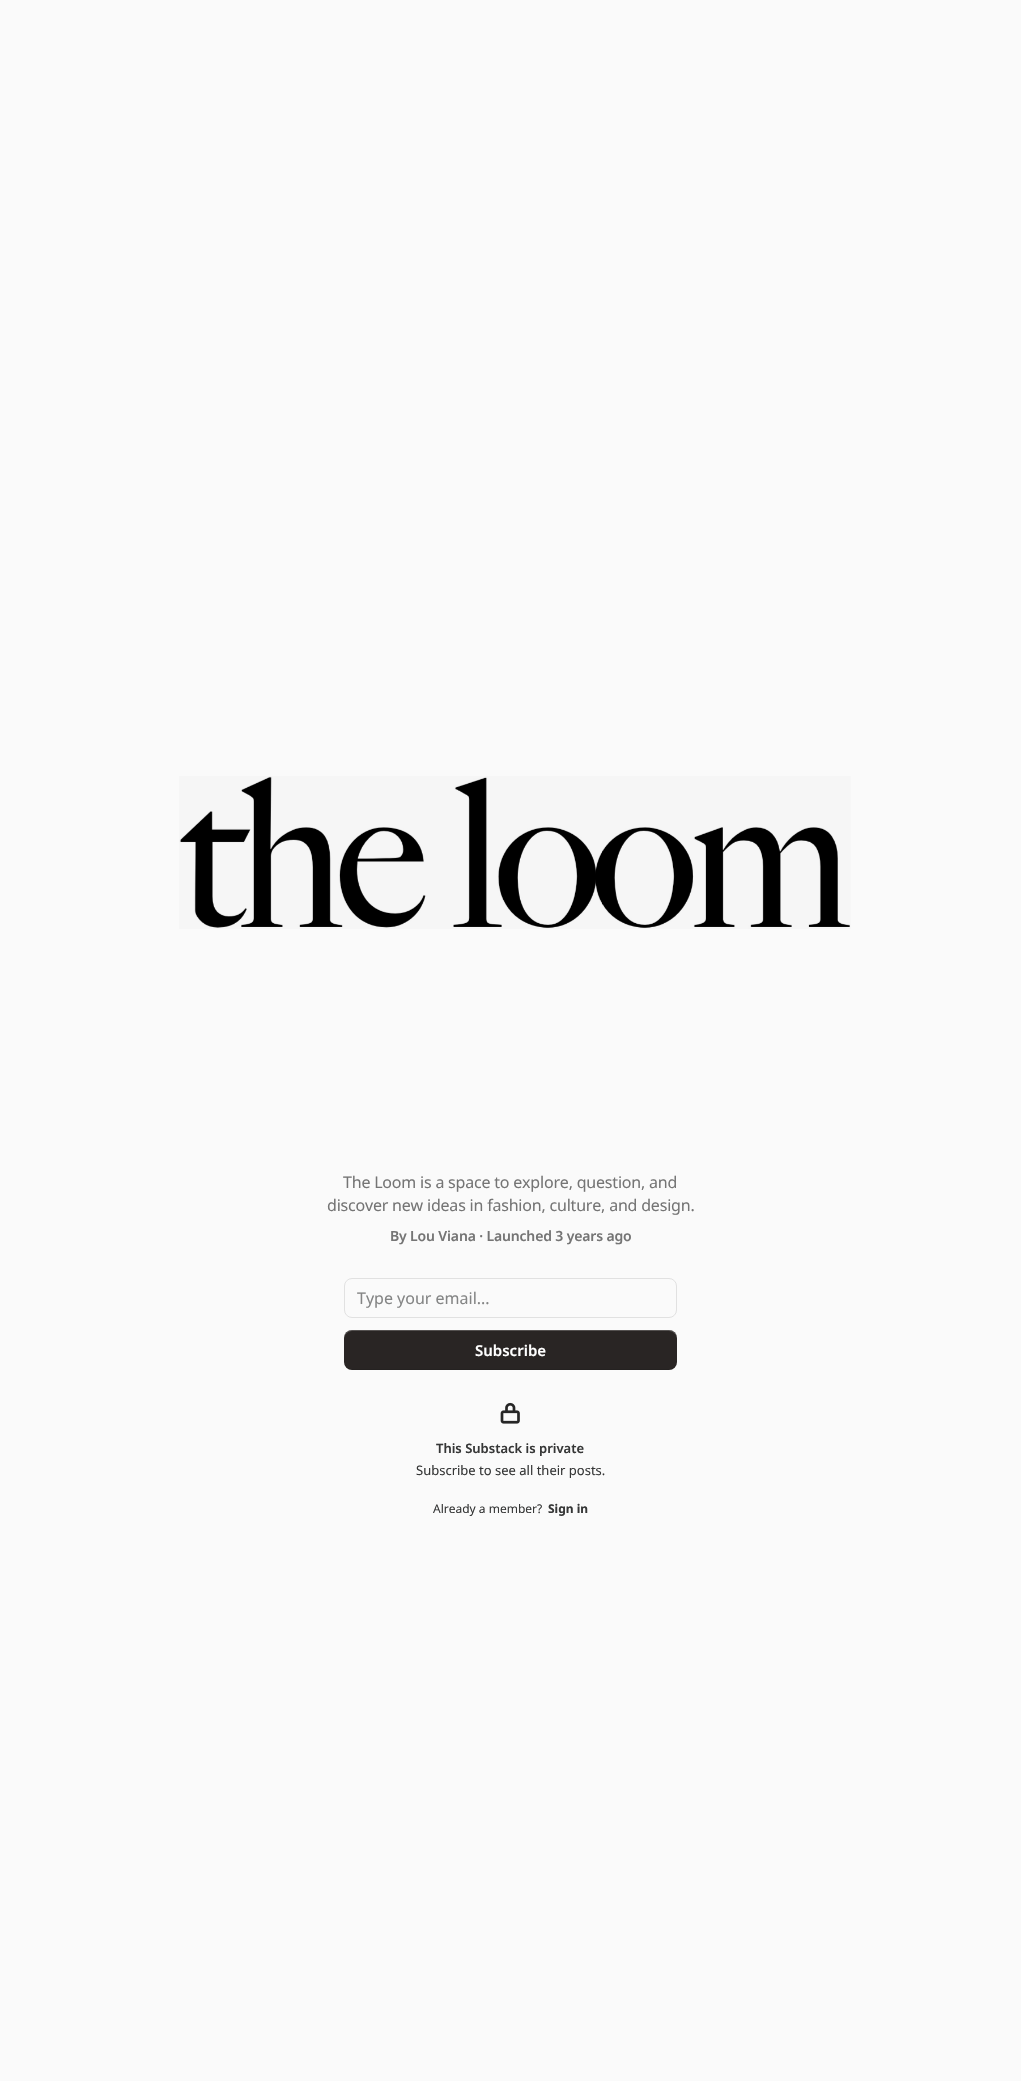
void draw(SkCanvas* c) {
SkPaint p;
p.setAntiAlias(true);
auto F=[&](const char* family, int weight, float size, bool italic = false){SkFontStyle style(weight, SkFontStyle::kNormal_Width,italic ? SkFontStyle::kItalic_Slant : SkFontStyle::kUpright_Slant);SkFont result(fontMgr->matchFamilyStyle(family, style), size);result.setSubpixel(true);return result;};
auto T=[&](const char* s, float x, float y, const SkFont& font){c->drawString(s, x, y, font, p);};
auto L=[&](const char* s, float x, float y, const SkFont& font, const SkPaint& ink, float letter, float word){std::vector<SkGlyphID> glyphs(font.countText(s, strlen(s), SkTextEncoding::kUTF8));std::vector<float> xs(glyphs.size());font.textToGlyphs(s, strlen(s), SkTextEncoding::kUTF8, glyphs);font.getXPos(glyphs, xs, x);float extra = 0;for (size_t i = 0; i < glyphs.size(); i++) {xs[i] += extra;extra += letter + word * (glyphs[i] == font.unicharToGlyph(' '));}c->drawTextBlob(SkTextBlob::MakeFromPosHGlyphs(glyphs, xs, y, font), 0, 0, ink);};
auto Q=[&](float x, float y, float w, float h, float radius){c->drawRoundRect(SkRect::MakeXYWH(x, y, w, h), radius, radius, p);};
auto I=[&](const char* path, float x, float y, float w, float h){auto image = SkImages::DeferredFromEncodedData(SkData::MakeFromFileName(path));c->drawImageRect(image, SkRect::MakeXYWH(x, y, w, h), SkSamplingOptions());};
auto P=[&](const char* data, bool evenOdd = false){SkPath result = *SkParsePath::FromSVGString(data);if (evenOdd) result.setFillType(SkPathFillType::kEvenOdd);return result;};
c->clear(0xfffafafa);
I("1.png",179,776,672,153);
auto f1 = F("Noto Sans",400,16);
p.setColor(0xff757575);
L("The Loom is a space to explore, question, and",343,1188,f1,p,-.2,0);
L("discover new ideas in fashion, culture, and design.",327,1211,f1,p,-.2,0);
auto f2 = F("Noto Sans",600,14);
L("By Lou Viana · Launched 3 years ago",390,1241,f2,p,-.15,0);
p.setStroke(true);
p.setStrokeWidth(1);
p.setColor(0xffe1e1e1);
c->drawRoundRect(SkRect::MakeXYWH(344.5,1278.5,332,39),7.5,7.5,p);
p.setStroke(false);
p.setColor(0xff848585);
T("Type your email...",357,1304,f1);
p.setColor(0xff292524);
Q(344,1330,333,40,8);
p.setColor(0x1a000000);
c->drawPath(P("M344 1361v1c0 4 4 8 8 8h317c4 0 8-4 8-8v-1c0 4-4 8-8 8h-317c-4 0-8-4-8-8z"),p);
p.setColor(0x33ffffff);
c->drawPath(P("M352 1331h317c4 0 8 4 8 8v-1c0-4-4-8-8-8h-317c-4 0-8 4-8 8v1c0-4 4-8 8-8z"),p);
auto f3 = F("Noto Sans",600,15);
p.setColor(0xffffffff);
T("Subscribe",475,1356,f3);
I("2.png",500,1402,20,22);
auto f4 = F("Noto Sans",600,13);
p.setColor(0xff363737);
T("This Substack is private",436,1453,f4);
auto f5 = F("Noto Sans",400,13);
T("Subscribe to see all their posts.",416,1475,f5);
auto f6 = F("Noto Sans",400,12);
T("Already a member?",433,1513,f6);
auto f7 = F("Noto Sans",700,12);
T("Sign in",548,1513,f7);
}
